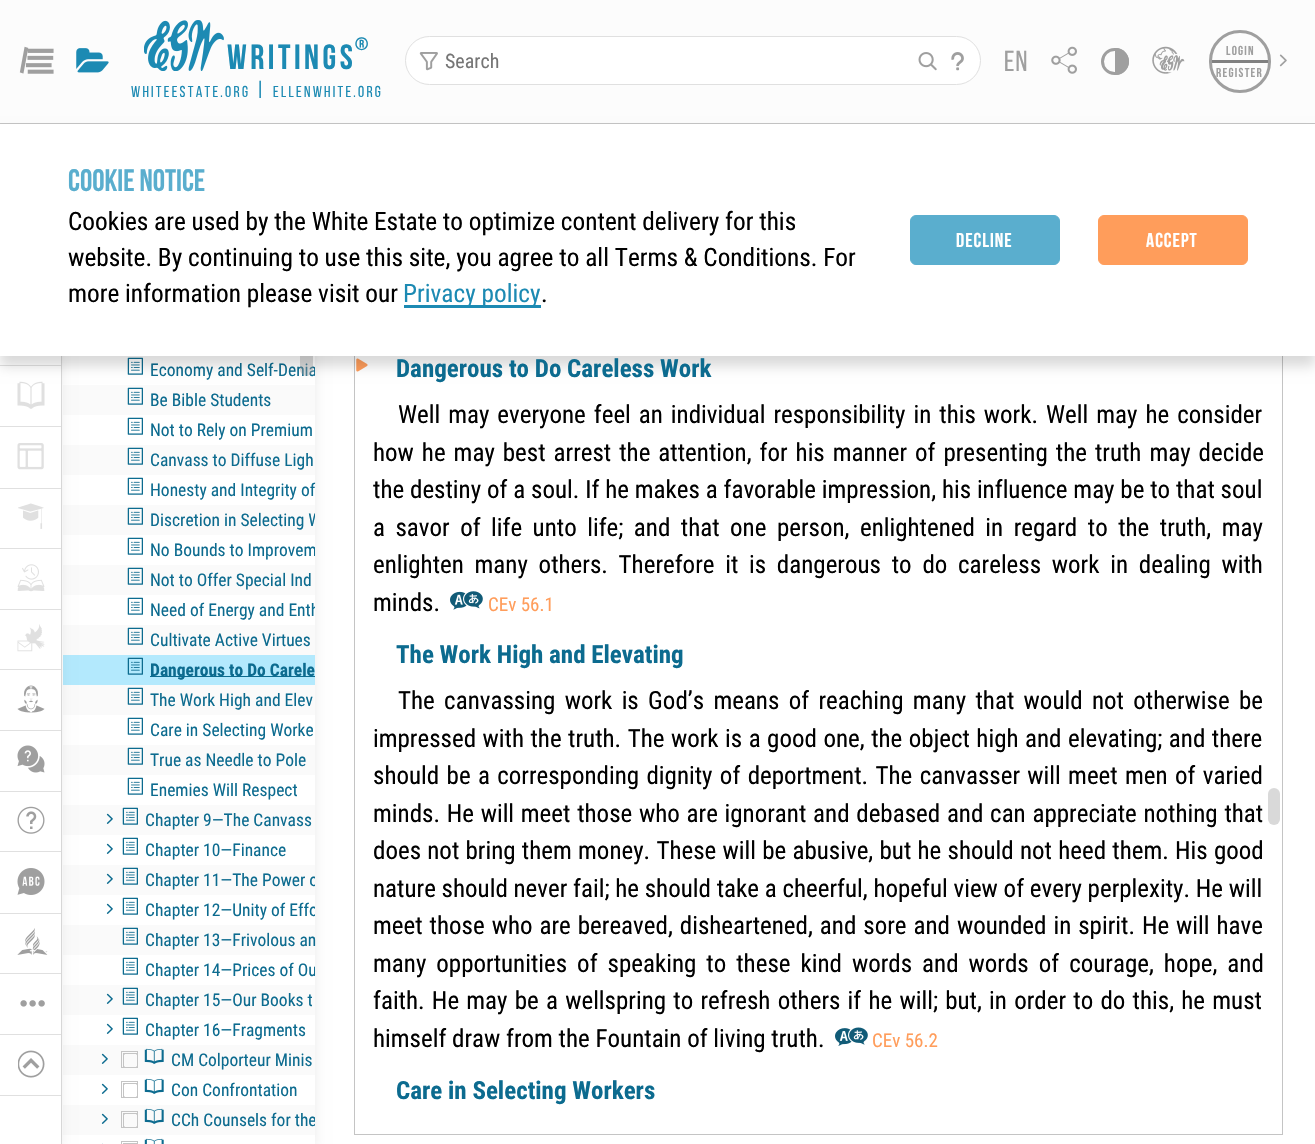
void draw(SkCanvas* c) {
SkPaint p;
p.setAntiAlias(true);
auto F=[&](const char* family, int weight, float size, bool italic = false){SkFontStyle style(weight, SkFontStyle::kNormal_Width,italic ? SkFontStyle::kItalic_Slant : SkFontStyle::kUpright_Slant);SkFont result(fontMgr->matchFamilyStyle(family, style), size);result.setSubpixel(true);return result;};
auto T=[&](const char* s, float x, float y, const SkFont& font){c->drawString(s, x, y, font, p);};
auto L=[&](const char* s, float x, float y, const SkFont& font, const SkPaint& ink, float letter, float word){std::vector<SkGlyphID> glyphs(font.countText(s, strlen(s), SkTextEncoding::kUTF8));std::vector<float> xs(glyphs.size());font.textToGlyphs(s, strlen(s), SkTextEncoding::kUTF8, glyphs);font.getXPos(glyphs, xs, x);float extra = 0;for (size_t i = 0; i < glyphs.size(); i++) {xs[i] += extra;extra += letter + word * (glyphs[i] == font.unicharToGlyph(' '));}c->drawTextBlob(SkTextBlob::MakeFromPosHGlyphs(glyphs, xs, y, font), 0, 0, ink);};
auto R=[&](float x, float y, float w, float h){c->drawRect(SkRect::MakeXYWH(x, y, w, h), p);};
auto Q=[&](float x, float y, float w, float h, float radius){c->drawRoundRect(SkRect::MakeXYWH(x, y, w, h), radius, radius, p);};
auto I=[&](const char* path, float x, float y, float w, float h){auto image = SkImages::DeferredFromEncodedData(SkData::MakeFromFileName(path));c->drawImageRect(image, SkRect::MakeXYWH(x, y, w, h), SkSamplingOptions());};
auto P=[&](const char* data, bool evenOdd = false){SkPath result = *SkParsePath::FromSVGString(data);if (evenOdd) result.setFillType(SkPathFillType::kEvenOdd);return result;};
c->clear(0xffffffff);
p.setColor(0x14000000);
p.setMaskFilter(SkMaskFilter::MakeBlur(kNormal_SkBlurStyle, 6));
c->drawRect(SkRect::MakeXYWH(61,126,254,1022),p);
p.setMaskFilter(nullptr);
p.setColor(0xffffffff);
R(62,356,253,788);
p.setColor(0xffe0e0e0);
R(61,356,1,788);
p.setColor(0xfffafafa);
R(63,385,252,30);
R(63,445,252,30);
R(63,505,252,30);
R(63,565,252,30);
R(63,625,252,30);
p.setColor(0xffb3e9fd);
R(63,655,252,30);
p.setColor(0xfffafafa);
R(63,685,252,30);
R(63,745,252,30);
R(63,805,252,30);
R(63,865,252,30);
R(63,925,252,30);
R(63,985,252,30);
R(63,1045,252,30);
R(63,1105,252,30);
p.setColor(0x14000000);
p.setMaskFilter(SkMaskFilter::MakeBlur(kNormal_SkBlurStyle, 6));
c->drawRect(SkRect::MakeXYWH(0,126,61,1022),p);
p.setMaskFilter(nullptr);
p.setColor(0xfffcfcfc);
R(0,0,1315,123);
p.setColor(0xffc4c4c4);
R(0,123,1315,1);
I("1.png",19,46,35,28);
I("2.png",76,48,33,25);
I("3.png",144,20,80,51);
auto f1 = F("Bebas Neue",700,35);
p.setColor(0xff1c8ab3);
L("writings",227,69,f1,p,3.5,0);
auto f2 = F("Bebas Neue",700,18);
L("®",355,50,f2,p,2,0);
auto f3 = F("Bebas Neue",400,15.75);
L("whiteestate.org",131,97,f3,p,2.25,0);
auto f4 = F("Bebas Neue",400,22);
L("|",256,97,f4,p,2.25,0);
L("ellenwhite.org",273,97,f3,p,2.25,0);
p.setColor(0xffffffff);
c->drawRoundRect(SkRect::MakeXYWH(405.5,36.5,575,48),24,24,p);
p.setStroke(true);
p.setStrokeWidth(1);
p.setColor(0xffe0e0e0);
c->drawRoundRect(SkRect::MakeXYWH(405.5,36.5,575,48),24,24,p);
I("4.png",419,52,19,19);
auto f5 = F("Roboto Condensed",400,20);
p.setStroke(false);
p.setColor(0xff757575);
T("Search",445,68,f5);
I("5.png",918,52,19,19);
I("6.png",951,52,13,19);
auto f6 = F("Bebas Neue",400,29);
p.setColor(0xff9f9f9f);
L("en",1004,71,f6,p,1,0);
I("7.png",1051,46,26,28);
p.setStroke(true);
p.setStrokeWidth(3);
c->drawRoundRect(SkRect::MakeXYWH(1102.5,49.5,25,24),12,12,p);
p.setStroke(false);
c->drawPath(P("M1115 48h.5c7.5 0 13.5 6 13.5 13.5c0 7.5-6 13.5-13.5 13.5h-.5z"),p);
I("8.png",1152,46,33,28);
p.setColor(0xff808080);
R(1211,60,58,3);
p.setStroke(true);
p.setColor(0xff9f9f9f);
c->drawRoundRect(SkRect::MakeXYWH(1210.5,31.5,59,60),29.5,29.5,p);
auto f7 = F("Bebas Neue",700,13);
p.setStroke(false);
L("logIn",1226,55,f7,p,1.25,0);
L("Register",1216,77,f7,p,1.25,0);
I("9.png",1279,54,8,13);
p.setColor(0xffffffff);
R(0,356,61,788);
p.setColor(0xffe0e0e0);
R(0,365,61,1);
I("10.png",17,381,28,28);
c->save();
c->clipRect(SkRect::MakeXYWH(63,355,252,30));
auto f8 = F("Roboto Condensed",400,17.5);
p.setColor(0xff0c6b8f);
T("Economy and Self-Denia",150,376,f8);
c->restore();
p.setColor(0x669f9f9f);
Q(300,283,13,93,6.5);
I("22.png",127,357,16,18);
I("30.png",356,358,12,14);
I("31.png",450,591,33,19);
I("32.png",835,1027,33,19);
p.setColor(0xffd9d9d9);
Q(1268,788,12,37,6);
p.setStroke(true);
p.setStrokeWidth(1);
p.setColor(0xffc4c4c4);
c->drawRect(SkRect::MakeXYWH(354.5,224.5,928,910),p);
p.setStroke(false);
p.setColor(0x26000000);
p.setMaskFilter(SkMaskFilter::MakeBlur(kNormal_SkBlurStyle, 6));
c->drawRect(SkRect::MakeXYWH(0,134,1315,232),p);
p.setMaskFilter(nullptr);
p.setColor(0xffffffff);
R(0,124,1315,232);
auto f9 = F("Bebas Neue",700,31);
p.setColor(0xff5aaece);
T("Cookie Notice",68,191,f9);
auto f10 = F("Roboto Condensed",400,25.3);
p.setColor(0xff000000);
T("Cookies are used by the White Estate to optimize content delivery for this",68,230,f10);
T("website. By continuing to use this site, you agree to all Terms & Conditions. For",68,266,f10);
T("more information please visit our",68,302,f10);
p.setColor(0xff1c8ab3);
R(404,305,137,3);
T("Privacy policy",403,302,f10);
p.setColor(0xff000000);
T(".",541,302,f10);
p.setColor(0xff5aaece);
c->drawRoundRect(SkRect::MakeXYWH(910.5,215.5,149,49),5.5,5.5,p);
p.setStroke(true);
c->drawRoundRect(SkRect::MakeXYWH(910.5,215.5,149,49),5.5,5.5,p);
auto f11 = F("Bebas Neue",700,20);
p.setStroke(false);
p.setColor(0xffffffff);
L("Decline",956,247,f11,p,1,0);
p.setColor(0xffff9d5b);
c->drawRoundRect(SkRect::MakeXYWH(1098.5,215.5,149,49),5.5,5.5,p);
p.setStroke(true);
c->drawRoundRect(SkRect::MakeXYWH(1098.5,215.5,149,49),5.5,5.5,p);
p.setStroke(false);
p.setColor(0xffffffff);
L("Accept",1146,247,f11,p,1,0);
p.setColor(0xffe0e0e0);
R(0,426,61,1);
R(0,488,61,1);
I("11.png",17,443,27,27);
R(0,548,61,1);
I("12.png",18,503,26,26);
R(0,609,61,1);
I("13.png",17,564,28,28);
R(0,669,61,1);
I("14.png",17,624,28,28);
R(0,730,61,1);
I("15.png",17,685,28,28);
R(0,791,61,1);
I("16.png",17,745,28,28);
R(0,851,61,1);
I("17.png",17,806,28,28);
R(0,913,61,1);
I("18.png",17,868,28,27);
R(0,973,61,1);
I("19.png",17,928,31,27);
R(0,1034,61,1);
I("20.png",20,1000,25,7);
R(0,1095,61,1);
I("21.png",18,1050,27,28);
I("23.png",127,387,16,18);
p.setColor(0xff0c6b8f);
T("Be Bible Students",150,406,f8);
I("22.png",127,417,16,18);
T("Not to Rely on Premium",150,436,f8);
I("23.png",127,447,16,18);
T("Canvass to Diffuse Ligh",150,466,f8);
I("22.png",127,477,16,18);
T("Honesty and Integrity of",150,496,f8);
I("23.png",127,507,16,18);
c->save();
c->clipRect(SkRect::MakeXYWH(63,505,252,30));
T("Discretion in Selecting W",150,526,f8);
c->restore();
I("22.png",127,537,16,18);
c->save();
c->clipRect(SkRect::MakeXYWH(63,535,252,30));
T("No Bounds to Improvem",150,556,f8);
c->restore();
I("23.png",127,567,16,18);
T("Not to Offer Special Ind",150,586,f8);
I("22.png",127,597,16,18);
c->save();
c->clipRect(SkRect::MakeXYWH(63,595,252,30));
T("Need of Energy and Enth",150,616,f8);
c->restore();
I("23.png",127,627,16,18);
T("Cultivate Active Virtues",150,646,f8);
I("24.png",127,657,16,18);
R(150,676,165,1);
auto f12 = F("Roboto Condensed",700,17.5);
T("Dangerous to Do Carele",150,676,f12);
I("23.png",127,687,16,18);
T("The Work High and Elev",150,706,f8);
I("22.png",127,717,16,18);
T("Care in Selecting Worke",150,736,f8);
I("23.png",127,747,16,18);
T("True as Needle to Pole",150,766,f8);
I("22.png",127,777,16,18);
T("Enemies Will Respect",150,796,f8);
I("25.png",106,813,7,11);
I("23.png",122,807,16,18);
T("Chapter 9—The Canvass",145,826,f8);
I("26.png",106,843,7,11);
I("22.png",122,837,16,18);
T("Chapter 10—Finance",145,856,f8);
I("25.png",106,873,7,11);
I("23.png",122,867,16,18);
c->save();
c->clipRect(SkRect::MakeXYWH(63,865,252,30));
T("Chapter 11—The Power o",145,886,f8);
c->restore();
I("26.png",106,903,7,11);
I("22.png",122,897,16,18);
c->save();
c->clipRect(SkRect::MakeXYWH(63,895,252,30));
T("Chapter 12—Unity of Effo",145,916,f8);
c->restore();
I("23.png",122,927,16,18);
T("Chapter 13—Frivolous an",145,946,f8);
I("22.png",122,957,16,18);
c->save();
c->clipRect(SkRect::MakeXYWH(63,955,252,30));
T("Chapter 14—Prices of Ou",145,976,f8);
c->restore();
I("25.png",106,993,7,11);
I("23.png",122,987,16,18);
T("Chapter 15—Our Books t",145,1006,f8);
I("26.png",106,1023,7,11);
I("22.png",122,1017,16,18);
T("Chapter 16—Fragments",145,1036,f8);
I("25.png",101,1053,7,11);
p.setStroke(true);
p.setColor(0xffc4c4c4);
c->drawRect(SkRect::MakeXYWH(123.5,1053.5,14,14),p);
c->drawRect(SkRect::MakeXYWH(121.5,1051.5,16,16),p);
c->drawRoundRect(SkRect::MakeXYWH(123.5,1053.5,14,14),2,2,p);
I("27.png",144,1048,20,16);
p.setStroke(false);
p.setColor(0xff0c6b8f);
T("CM Colporteur Minis",171,1066,f8);
I("26.png",101,1083,7,11);
p.setStroke(true);
p.setColor(0xffc4c4c4);
c->drawRect(SkRect::MakeXYWH(123.5,1083.5,14,14),p);
c->drawRect(SkRect::MakeXYWH(121.5,1081.5,16,16),p);
c->drawRoundRect(SkRect::MakeXYWH(123.5,1083.5,14,14),2,2,p);
I("28.png",144,1078,20,16);
p.setStroke(false);
p.setColor(0xff0c6b8f);
T("Con Confrontation",171,1096,f8);
I("25.png",101,1113,7,11);
p.setStroke(true);
p.setColor(0xffc4c4c4);
c->drawRect(SkRect::MakeXYWH(123.5,1113.5,14,14),p);
c->drawRect(SkRect::MakeXYWH(121.5,1111.5,16,16),p);
c->drawRoundRect(SkRect::MakeXYWH(123.5,1113.5,14,14),2,2,p);
I("27.png",144,1108,20,16);
c->save();
c->clipRect(SkRect::MakeXYWH(63,1105,252,30));
p.setStroke(false);
p.setColor(0xff0c6b8f);
T("CCh Counsels for the",171,1126,f8);
c->restore();
p.setColor(0xffe2edf2);
R(102,1143,1,1);
p.setStroke(true);
p.setColor(0xffc4c4c4);
c->drawRect(SkRect::MakeXYWH(123.5,1143.5,14,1),p);
c->drawRect(SkRect::MakeXYWH(121.5,1141.5,16,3),p);
I("29.png",144,1138,20,6);
auto f13 = F("Roboto Condensed",700,25);
p.setStroke(false);
p.setColor(0xff0c6b8f);
T("Dangerous to Do Careless Work",396,377,f13);
auto f14 = F("Roboto Condensed",400,25);
p.setColor(0xff000000);
L("Well may everyone feel an individual responsibility in this work. Well may he consider",398,423,f14,p,0,2.25);
L("how he may best arrest the attention, for his manner of presenting the truth may decide",373,461,f14,p,0,2.25);
L("the destiny of a soul. If he makes a favorable impression, his influence may be to that soul",373,498,f14,p,0,.1);
L("a savor of life unto life; and that one person, enlightened in regard to the truth, may",373,536,f14,p,0,4.75);
L("enlighten many others. Therefore it is dangerous to do careless work in dealing with",373,573,f14,p,0,5);
T("minds.",373,611,f14);
auto f15 = F("Roboto Condensed",400,19);
p.setColor(0xffff9d5b);
T("CEv 56.1",488,611,f15);
p.setColor(0xff0c6b8f);
T("The Work High and Elevating",396,663,f13);
p.setColor(0xff000000);
L("The canvassing work is God’s means of reaching many that would not otherwise be",398,709,f14,p,0,3.6);
L("impressed with the truth. The work is a good one, the object high and elevating; and there",373,747,f14,p,0,.75);
L("should be a corresponding dignity of deportment. The canvasser will meet men of varied",373,784,f14,p,0,1.6);
L("minds. He will meet those who are ignorant and debased and can appreciate nothing that",373,822,f14,p,0,1);
L("does not bring them money. These will be abusive, but he should not heed them. His good",373,859,f14,p,0,.5);
T("nature should never fail; he should take a cheerful, hopeful view of every perplexity. He will",373,897,f14);
L("meet those who are bereaved, disheartened, and sore and wounded in spirit. He will have",373,934,f14,p,0,1.25);
L("many opportunities of speaking to these kind words and words of courage, hope, and",373,972,f14,p,0,4.25);
L("faith. He may be a wellspring to refresh others if he will; but, in order to do this, he must",373,1009,f14,p,0,1.5);
T("himself draw from the Fountain of living truth.",373,1047,f14);
p.setColor(0xffff9d5b);
T("CEv 56.2",872,1047,f15);
p.setColor(0xff0c6b8f);
T("Care in Selecting Workers",396,1099,f13);
}
